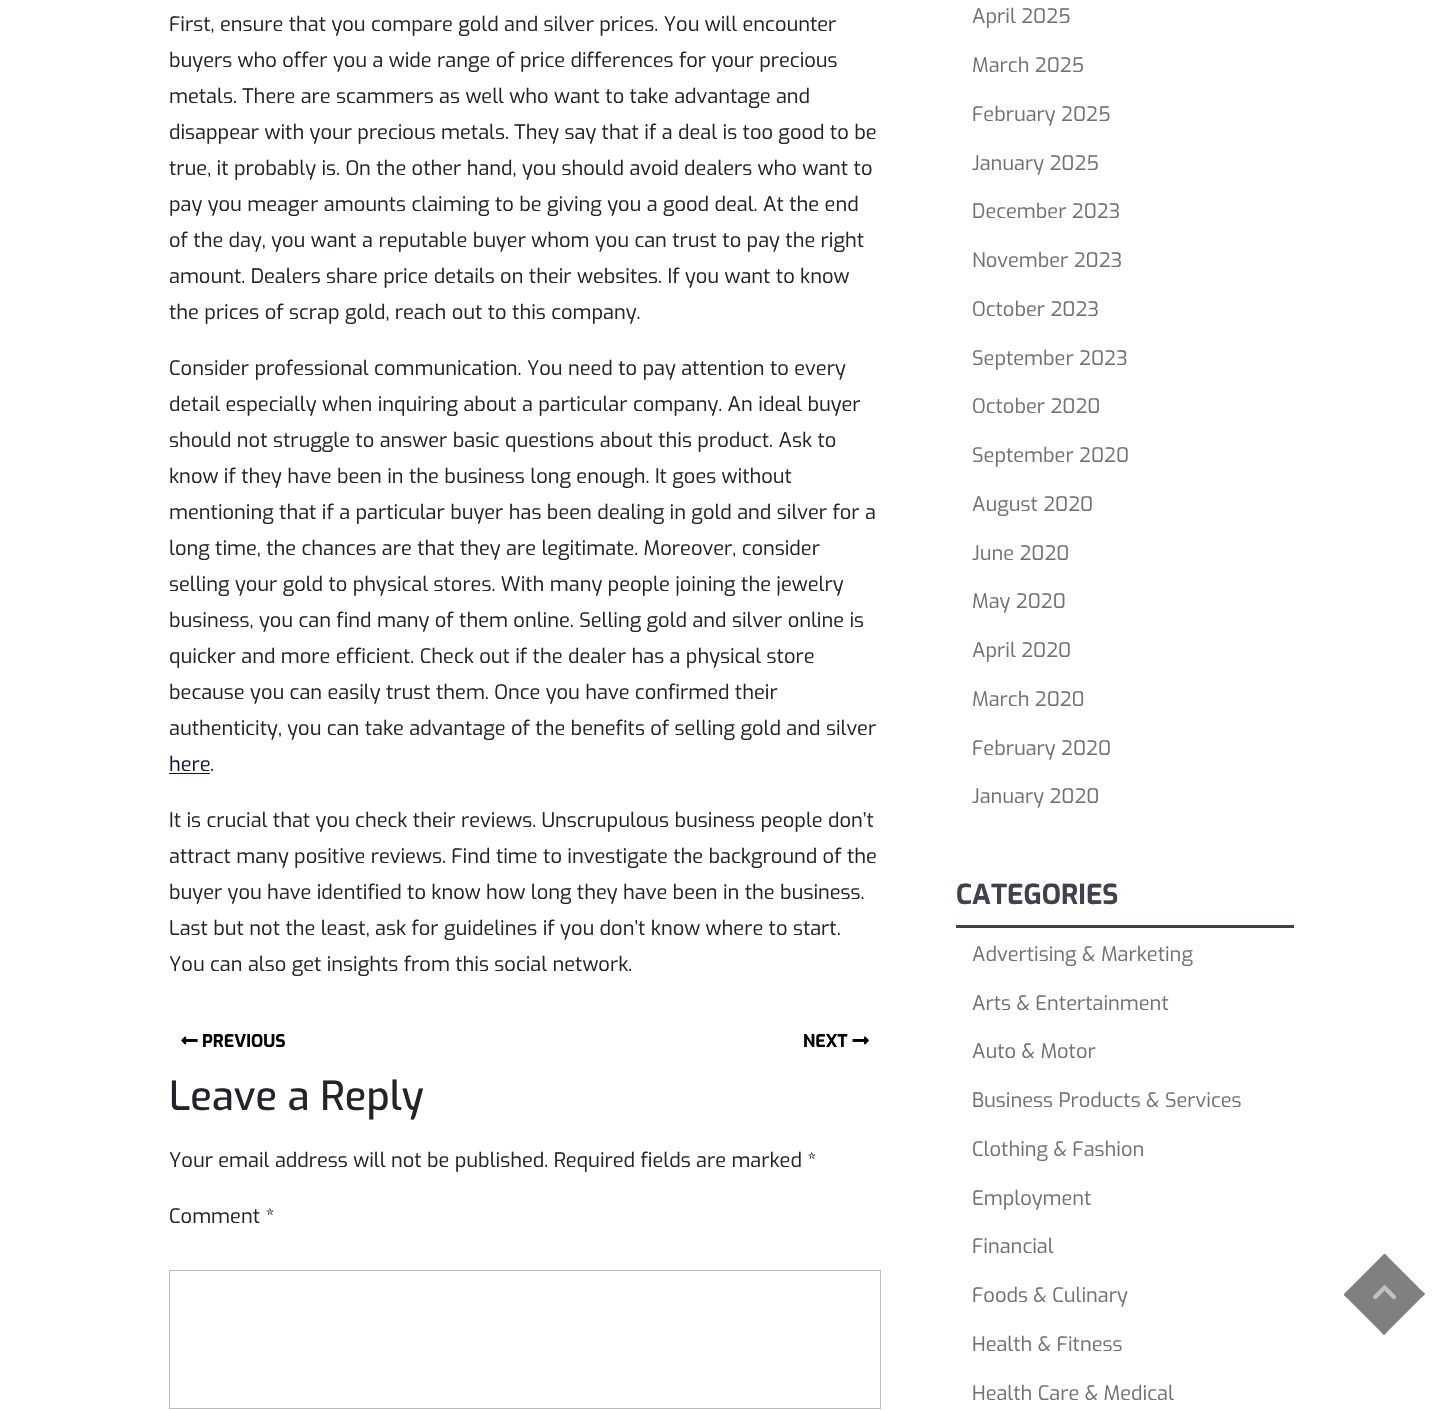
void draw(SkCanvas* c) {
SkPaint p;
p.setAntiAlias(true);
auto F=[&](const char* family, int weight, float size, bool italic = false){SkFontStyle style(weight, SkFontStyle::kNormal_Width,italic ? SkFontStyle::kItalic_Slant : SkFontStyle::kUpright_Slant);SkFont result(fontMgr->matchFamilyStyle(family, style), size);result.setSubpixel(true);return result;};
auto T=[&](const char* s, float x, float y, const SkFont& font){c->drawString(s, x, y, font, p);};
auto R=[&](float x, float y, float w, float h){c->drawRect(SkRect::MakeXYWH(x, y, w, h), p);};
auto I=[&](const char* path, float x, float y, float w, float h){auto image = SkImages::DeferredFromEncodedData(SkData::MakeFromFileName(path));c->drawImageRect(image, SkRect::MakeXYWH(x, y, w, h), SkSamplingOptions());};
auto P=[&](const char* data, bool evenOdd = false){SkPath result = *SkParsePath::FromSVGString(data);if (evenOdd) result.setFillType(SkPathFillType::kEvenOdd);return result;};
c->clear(0xffffffff);
auto f1 = F("Exo",400,20);
p.setColor(0xff212529);
T("First, ensure that you compare gold and silver prices. You will encounter",169,31,f1);
T("buyers who offer you a wide range of price differences for your precious",169,67,f1);
T("metals. There are scammers as well who want to take advantage and",169,103,f1);
T("disappear with your precious metals. They say that if a deal is too good to be",169,139,f1);
T("true, it probably is. On the other hand, you should avoid dealers who want to",169,175,f1);
T("pay you meager amounts claiming to be giving you a good deal. At the end",169,211,f1);
T("of the day, you want a reputable buyer whom you can trust to pay the right",169,247,f1);
T("amount. Dealers share price details on their websites. If you want to know",169,283,f1);
T("the prices of scrap gold, reach out to this company.",169,319,f1);
T("Consider professional communication. You need to pay attention to every",169,375,f1);
T("detail especially when inquiring about a particular company. An ideal buyer",169,411,f1);
T("should not struggle to answer basic questions about this product. Ask to",169,447,f1);
T("know if they have been in the business long enough. It goes without",169,483,f1);
T("mentioning that if a particular buyer has been dealing in gold and silver for a",169,519,f1);
T("long time, the chances are that they are legitimate. Moreover, consider",169,555,f1);
T("selling your gold to physical stores. With many people joining the jewelry",169,591,f1);
T("business, you can find many of them online. Selling gold and silver online is",169,627,f1);
T("quicker and more efficient. Check out if the dealer has a physical store",169,663,f1);
T("because you can easily trust them. Once you have confirmed their",169,699,f1);
T("authenticity, you can take advantage of the benefits of selling gold and silver",169,735,f1);
p.setColor(0xff101631);
T("here",169,771,f1);
R(169,773,41,1);
p.setColor(0xff212529);
T(".",210,771,f1);
T("It is crucial that you check their reviews. Unscrupulous business people don’t",169,827,f1);
T("attract many positive reviews. Find time to investigate the background of the",169,863,f1);
T("buyer you have identified to know how long they have been in the business.",169,899,f1);
T("Last but not the least, ask for guidelines if you don’t know where to start.",169,935,f1);
T("You can also get insights from this social network.",169,971,f1);
I("1.png",181,1036,17,9);
auto f2 = F("Exo",700,17.5);
p.setColor(0xff000000);
T("PREVIOUS",202,1047,f2);
T("NEXT",803,1047,f2);
I("2.png",852,1036,17,9);
auto f3 = F("Exo",500,40);
p.setColor(0xff212529);
T("Leave a Reply",169,1110,f3);
T("Your email address will not be published. Required fields are marked *",169,1167,f1);
T("Comment *",169,1223,f1);
p.setStroke(true);
p.setStrokeWidth(1);
p.setColor(0xffbcbcbc);
c->drawRect(SkRect::MakeXYWH(169.5,1270.5,711,138),p);
p.setStroke(false);
p.setColor(0xff717171);
T("April 2025",972,23,f1);
T("March 2025",972,72,f1);
T("February 2025",972,121,f1);
T("January 2025",972,170,f1);
T("December 2023",972,218,f1);
T("November 2023",972,267,f1);
T("October 2023",972,316,f1);
T("September 2023",972,365,f1);
T("October 2020",972,413,f1);
T("September 2020",972,462,f1);
T("August 2020",972,511,f1);
T("June 2020",972,560,f1);
T("May 2020",972,608,f1);
T("April 2020",972,657,f1);
T("March 2020",972,706,f1);
T("February 2020",972,755,f1);
T("January 2020",972,803,f1);
p.setColor(0xff3f424e);
R(956,925,338,3);
auto f4 = F("Exo",700,27.5);
T("CATEGORIES",956,904,f4);
p.setColor(0xff717171);
T("Advertising & Marketing",972,961,f1);
T("Arts & Entertainment",972,1010,f1);
T("Auto & Motor",972,1058,f1);
T("Business Products & Services",972,1107,f1);
T("Clothing & Fashion",972,1156,f1);
T("Employment",972,1205,f1);
T("Financial",972,1253,f1);
T("Foods & Culinary",972,1302,f1);
T("Health & Fitness",972,1351,f1);
T("Health Care & Medical",972,1400,f1);
p.setColor(0xff808080);
c->drawPath(P("M1344 1294l40-40h1l40 40l-41 41l-40-40z"),p);
c->drawPath(P("M1344 1295l3-4v7zm41-41l-4 3h7zm37 37l3 3l-3 3zm-35 41l-3 3l-3-3z",true),p);
I("3.png",1372,1285,25,15);
}
